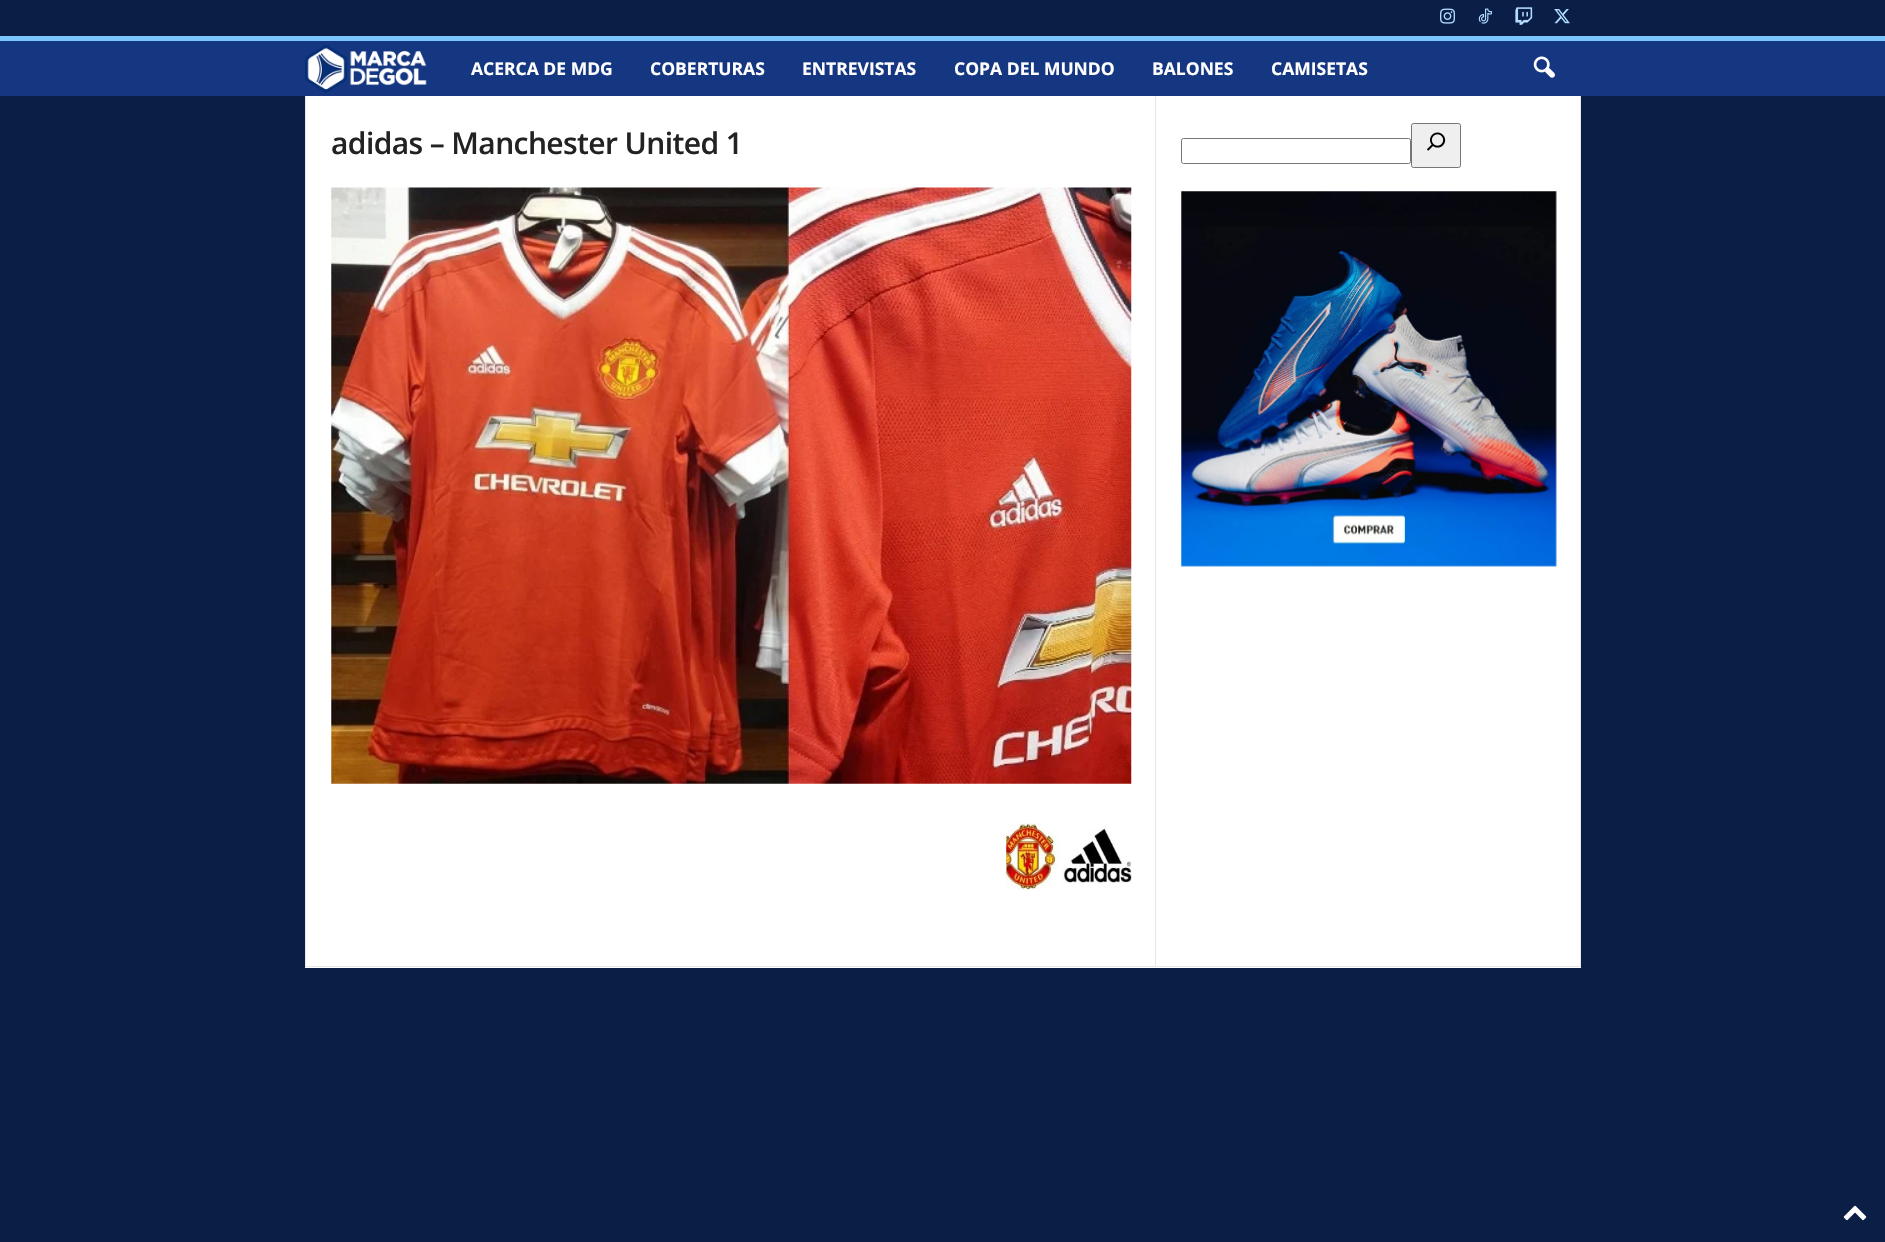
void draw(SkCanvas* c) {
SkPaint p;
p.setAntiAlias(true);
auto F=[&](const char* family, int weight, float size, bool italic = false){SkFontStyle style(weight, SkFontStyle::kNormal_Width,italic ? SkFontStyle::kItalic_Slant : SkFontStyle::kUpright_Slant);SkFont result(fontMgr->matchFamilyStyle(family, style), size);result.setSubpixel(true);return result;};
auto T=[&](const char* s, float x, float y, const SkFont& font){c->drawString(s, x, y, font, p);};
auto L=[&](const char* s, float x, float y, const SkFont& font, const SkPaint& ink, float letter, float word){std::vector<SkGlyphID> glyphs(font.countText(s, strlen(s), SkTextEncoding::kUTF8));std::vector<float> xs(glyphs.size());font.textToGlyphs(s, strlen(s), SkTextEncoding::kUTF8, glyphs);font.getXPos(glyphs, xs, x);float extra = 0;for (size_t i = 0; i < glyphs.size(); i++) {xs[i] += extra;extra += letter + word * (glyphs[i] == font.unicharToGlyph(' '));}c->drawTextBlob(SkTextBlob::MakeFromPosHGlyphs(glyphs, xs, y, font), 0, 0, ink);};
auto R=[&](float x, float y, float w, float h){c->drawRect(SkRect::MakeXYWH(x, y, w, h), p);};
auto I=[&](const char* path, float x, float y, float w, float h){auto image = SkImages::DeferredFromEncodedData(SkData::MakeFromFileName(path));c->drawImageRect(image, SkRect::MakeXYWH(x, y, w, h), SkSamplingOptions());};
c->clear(0xff0a1e46);
I("1.png",1440,8,15,16);
I("2.png",1478,8,14,16);
I("3.png",1515,7,18,18);
I("4.png",1554,9,16,15);
p.setColor(0xff153781);
R(0,41,1885,55);
p.setColor(0xff7cc6ff);
R(0,36,1885,5);
I("5.png",305,45,122,48);
auto f1 = F("Open Sans",700,17.5);
p.setColor(0xffffffff);
T("ACERCA DE MDG",471,75,f1);
T("COBERTURAS",650,75,f1);
T("ENTREVISTAS",802,75,f1);
T("COPA DEL MUNDO",954,75,f1);
T("BALONES",1152,75,f1);
T("CAMISETAS",1271,75,f1);
I("6.png",1533,56,22,22);
R(305,96,1276,872);
p.setColor(0xffe6e6e6);
R(305,966,1276,1);
R(305,96,1,870);
auto f2 = F("Open Sans",600,30);
p.setColor(0xff222222);
L("adidas – Manchester United 1",331,154,f2,p,-.6,0);
I("7.png",331,187,801,597);
I("8.png",1006,823,126,68);
p.setColor(0xffe6e6e6);
R(1155,96,1,870);
p.setStroke(true);
p.setStrokeWidth(1);
p.setColor(0xff767676);
c->drawRoundRect(SkRect::MakeXYWH(1181.5,138.5,229,25),2,2,p);
p.setStroke(false);
p.setColor(0xffefefef);
c->drawRoundRect(SkRect::MakeXYWH(1411.5,123.5,49,44),2,2,p);
p.setStroke(true);
p.setColor(0xff767676);
c->drawRoundRect(SkRect::MakeXYWH(1411.5,123.5,49,44),2,2,p);
I("9.png",1427,132,19,19);
I("10.png",1181,191,376,376);
p.setStroke(false);
p.setColor(0xffe6e6e6);
R(1580,96,1,870);
I("11.png",1843,1205,24,16);
}
